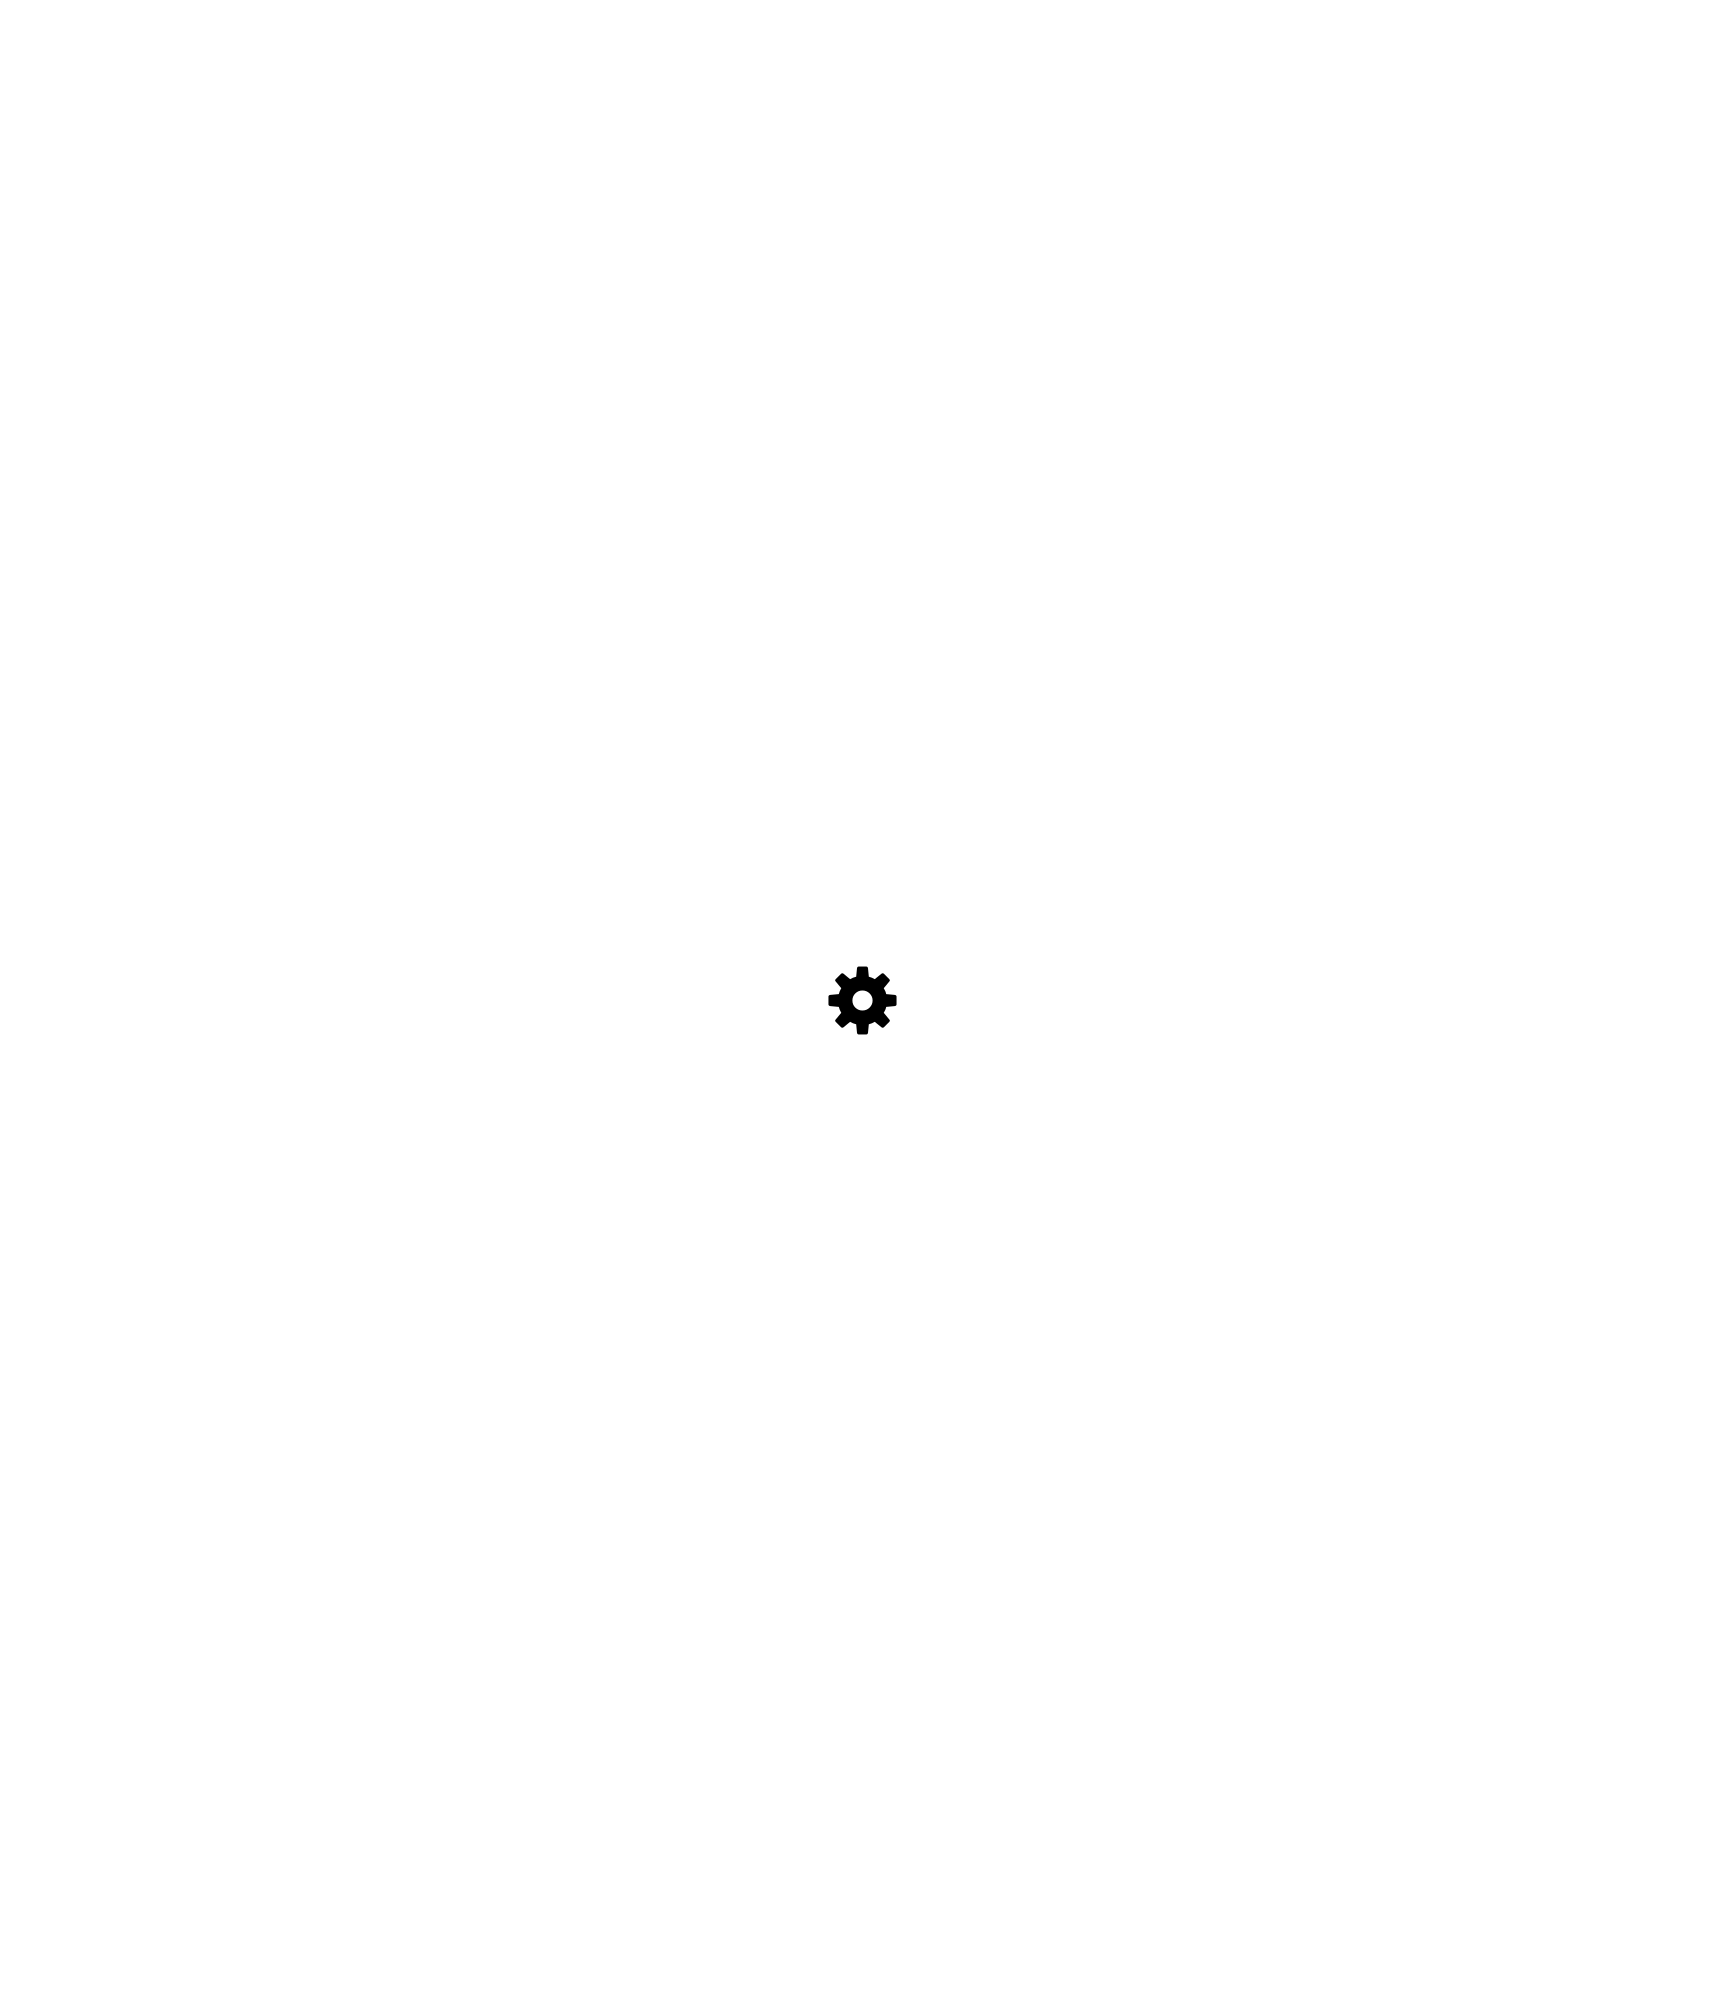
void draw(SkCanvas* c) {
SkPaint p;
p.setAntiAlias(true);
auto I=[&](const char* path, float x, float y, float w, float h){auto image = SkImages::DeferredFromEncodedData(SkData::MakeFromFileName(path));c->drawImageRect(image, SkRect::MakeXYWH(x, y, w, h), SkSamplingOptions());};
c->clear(0xffffffff);
I("1.png",828,966,69,69);
}
